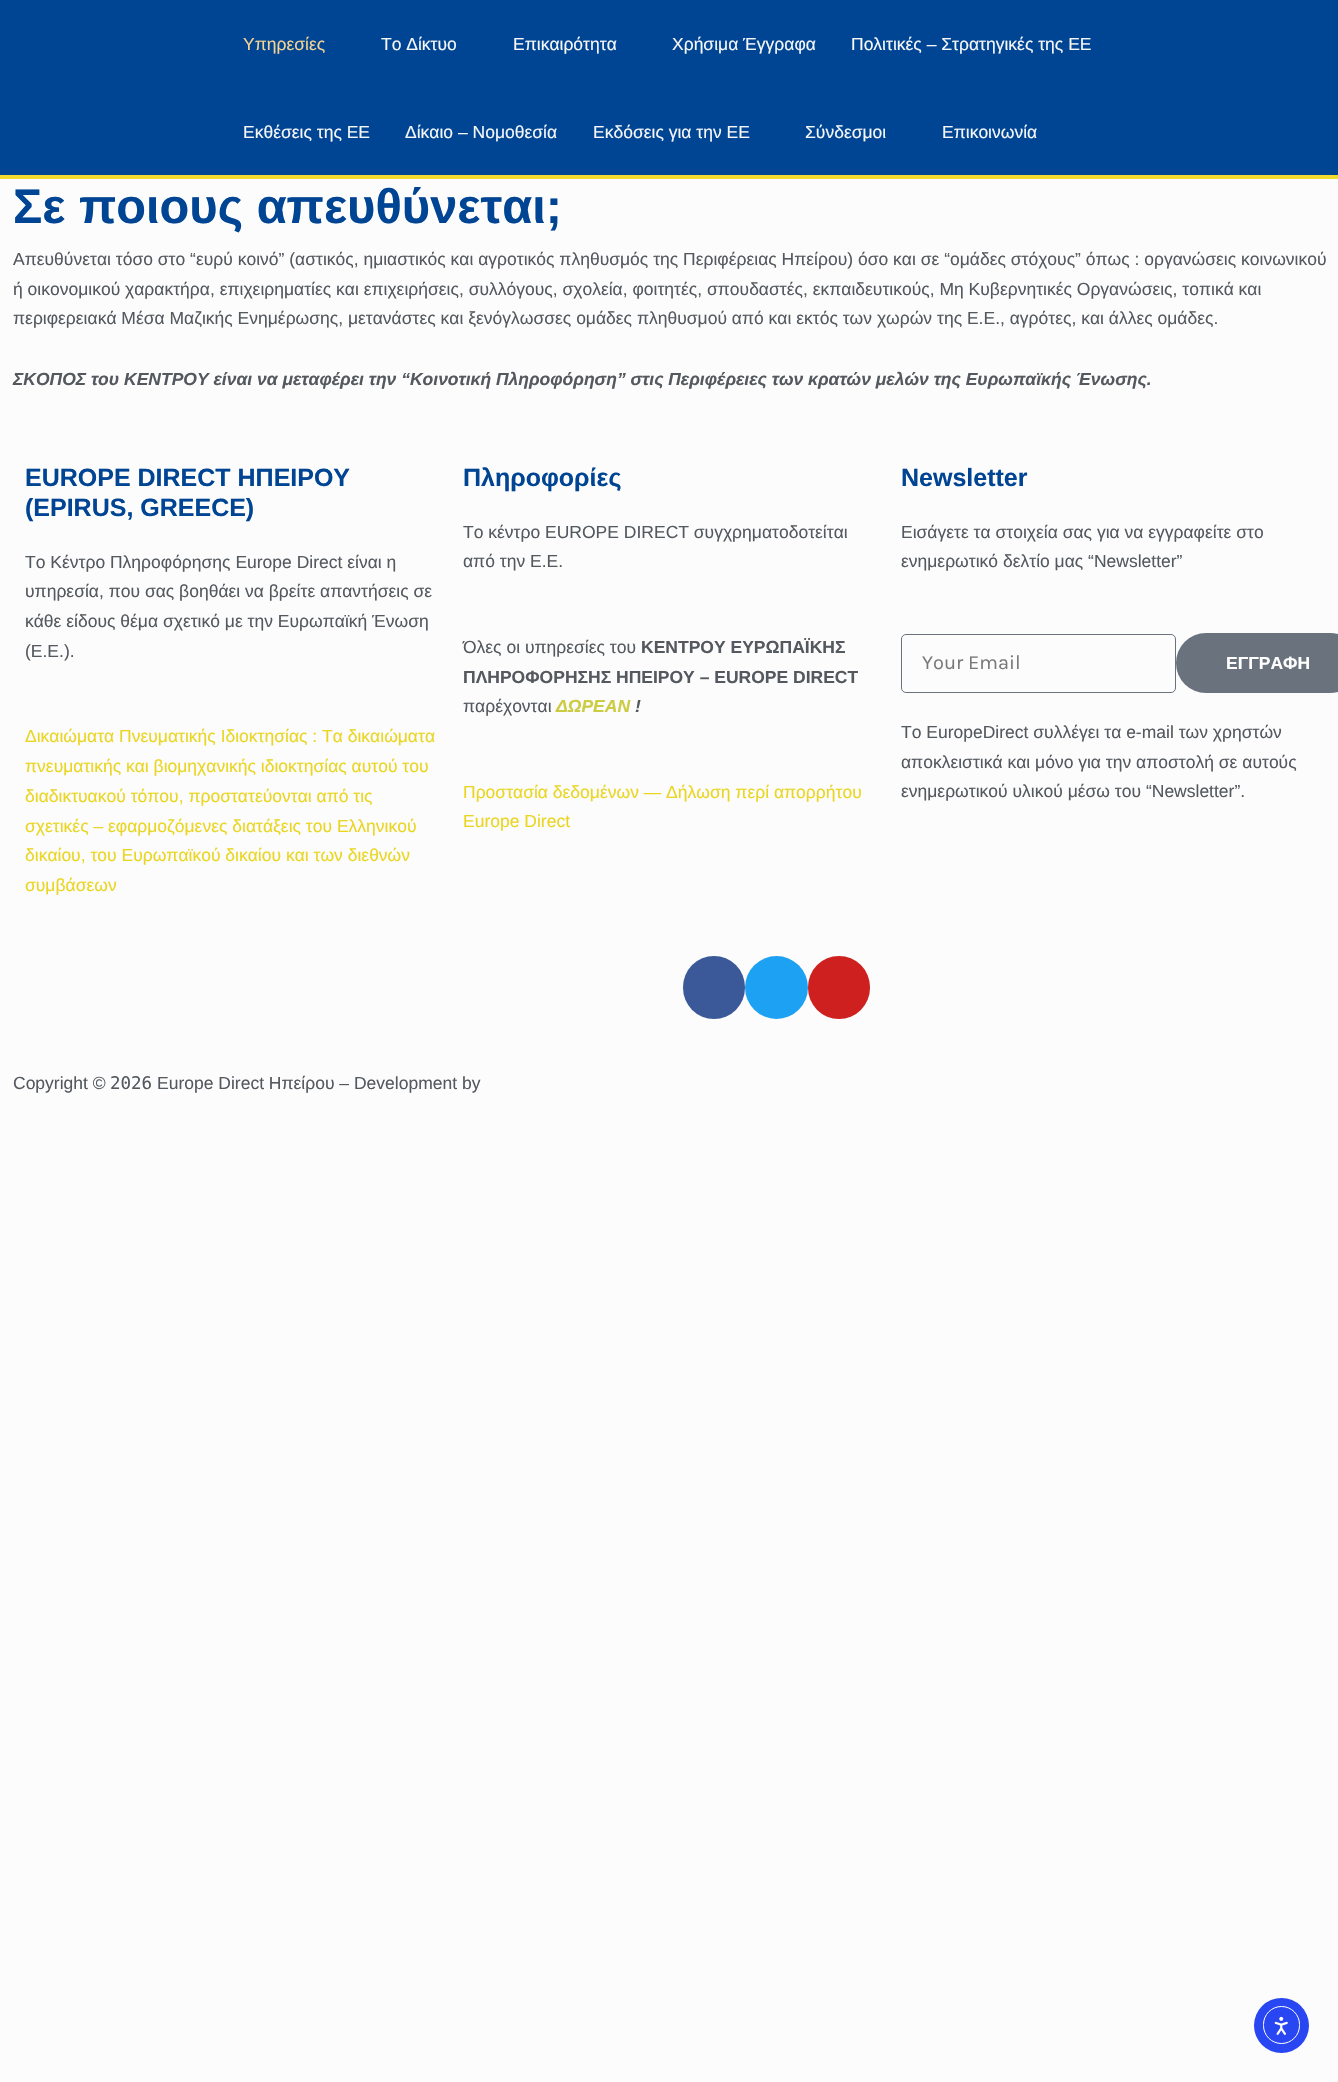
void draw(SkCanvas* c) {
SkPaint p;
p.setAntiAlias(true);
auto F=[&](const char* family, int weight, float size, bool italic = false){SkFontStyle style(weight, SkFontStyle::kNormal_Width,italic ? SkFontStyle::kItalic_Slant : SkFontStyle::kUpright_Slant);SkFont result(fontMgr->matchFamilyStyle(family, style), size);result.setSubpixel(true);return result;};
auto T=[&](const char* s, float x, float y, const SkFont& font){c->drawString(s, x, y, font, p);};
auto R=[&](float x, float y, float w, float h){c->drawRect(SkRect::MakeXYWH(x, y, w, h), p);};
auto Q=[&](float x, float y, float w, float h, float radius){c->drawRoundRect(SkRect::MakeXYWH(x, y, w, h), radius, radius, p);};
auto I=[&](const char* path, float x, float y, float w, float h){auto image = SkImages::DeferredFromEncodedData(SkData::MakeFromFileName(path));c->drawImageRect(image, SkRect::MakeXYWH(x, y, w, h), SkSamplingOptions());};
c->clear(0xfffcfcfc);
p.setColor(0xff004494);
R(0,0,1338,175);
p.setColor(0xfff1da30);
R(0,175,1338,4);
auto f1 = F("Liberation Sans",400,17.5);
p.setColor(0xfff4d490);
T("Υπηρεσίες",243,50,f1);
p.setColor(0xfff6f7f8);
T("Το Δίκτυο",381,50,f1);
T("Επικαιρότητα",513,50,f1);
T("Χρήσιμα Έγγραφα",672,50,f1);
T("Πολιτικές – Στρατηγικές της ΕΕ",851,50,f1);
T("Εκθέσεις της ΕΕ",243,138,f1);
T("Δίκαιο – Νομοθεσία",405,138,f1);
T("Εκδόσεις για την ΕΕ",593,138,f1);
T("Σύνδεσμοι",805,138,f1);
T("Επικοινωνία",942,138,f1);
auto f2 = F("Liberation Sans",700,48.75);
p.setColor(0xff004494);
T("Σε ποιους απευθύνεται;",13,223,f2);
p.setColor(0xff54595f);
T("Απευθύνεται τόσο στο “ευρύ κοινό” (αστικός, ημιαστικός και αγροτικός πληθυσμός της Περιφέρειας Ηπείρου) όσο και σε “ομάδες στόχους” όπως : οργανώσεις κοινωνικού",13,265,f1);
T("ή οικονομικού χαρακτήρα, επιχειρηματίες και επιχειρήσεις, συλλόγους, σχολεία, φοιτητές, σπουδαστές, εκπαιδευτικούς, Μη Κυβερνητικές Οργανώσεις, τοπικά και",13,295,f1);
T("περιφερειακά Μέσα Μαζικής Ενημέρωσης, μετανάστες και ξενόγλωσσες ομάδες πληθυσμού από και εκτός των χωρών της Ε.Ε., αγρότες, και άλλες ομάδες.",13,324,f1);
auto f3 = F("Liberation Sans",700,17.5,true);
T("ΣΚΟΠΟΣ του ΚΕΝΤΡΟΥ είναι να μεταφέρει την “Κοινοτική Πληροφόρηση” στις Περιφέρειες των κρατών μελών της Ευρωπαϊκής Ένωσης.",13,385,f3);
auto f4 = F("Liberation Sans",700,25);
p.setColor(0xff004494);
T("EUROPE DIRECT ΗΠΕΙΡΟΥ",25,486,f4);
T("(EPIRUS, GREECE)",25,516,f4);
p.setColor(0xff54595f);
T("Το Κέντρο Πληροφόρησης Europe Direct είναι η",25,568,f1);
T("υπηρεσία, που σας βοηθάει να βρείτε απαντήσεις σε",25,597,f1);
T("κάθε είδους θέμα σχετικό με την Ευρωπαϊκή Ένωση",25,627,f1);
T("(Ε.Ε.).",25,657,f1);
p.setColor(0xffead622);
T("Δικαιώματα Πνευματικής Ιδιοκτησίας : Τα δικαιώματα",25,742,f1);
T("πνευματικής και βιομηχανικής ιδιοκτησίας αυτού του",25,772,f1);
T("διαδικτυακού τόπου, προστατεύονται από τις",25,802,f1);
T("σχετικές – εφαρμοζόμενες διατάξεις του Ελληνικού",25,832,f1);
T("δικαίου, του Ευρωπαϊκού δικαίου και των διεθνών",25,861,f1);
T("συμβάσεων",25,891,f1);
p.setColor(0xff004494);
T("Πληροφορίες",463,486,f4);
p.setColor(0xff54595f);
T("Το κέντρο EUROPE DIRECT συγχρηματοδοτείται",463,538,f1);
T("από την Ε.Ε.",463,567,f1);
T("Όλες οι υπηρεσίες του",463,653,f1);
auto f5 = F("Liberation Sans",700,17.5);
T("ΚΕΝΤΡΟΥ ΕΥΡΩΠΑΪΚΗΣ",641,653,f5);
T("ΠΛΗΡΟΦΟΡΗΣΗΣ ΗΠΕΙΡΟΥ – EUROPE DIRECT",463,683,f5);
T("παρέχονται",463,712,f1);
p.setColor(0xffcccc43);
T("ΔΩΡΕΑΝ",556,712,f3);
p.setColor(0xff54595f);
T("!",635,712,f3);
p.setColor(0xffead622);
T("Προστασία δεδομένων — Δήλωση περί απορρήτου",463,798,f1);
T("Europe Direct",463,827,f1);
p.setColor(0xff004494);
T("Newsletter",901,486,f4);
p.setColor(0xff54595f);
T("Εισάγετε τα στοιχεία σας για να εγγραφείτε στο",901,538,f1);
T("ενημερωτικό δελτίο μας “Newsletter”",901,567,f1);
p.setStroke(true);
p.setStrokeWidth(1);
p.setColor(0xff69727d);
c->drawRoundRect(SkRect::MakeXYWH(901.5,634.5,274,58),4.5,4.5,p);
auto f6 = F("Karla",400,20);
p.setStroke(false);
p.setColor(0xff77797a);
T("Your Email",922,669,f6);
p.setColor(0xff69727d);
Q(1176,633,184,60,30);
p.setColor(0xffffffff);
T("ΕΓΓΡΑΦΗ",1226,669,f5);
p.setColor(0xff54595f);
T("Το EuropeDirect συλλέγει τα e-mail των χρηστών",901,738,f1);
T("αποκλειστικά και μόνο για την αποστολή σε αυτούς",901,768,f1);
T("ενημερωτικού υλικού μέσω του “Newsletter”.",901,797,f1);
p.setColor(0xff3b5998);
Q(683,956,62,63,31);
p.setColor(0xff1da1f2);
c->drawCircle(776.5,987.5,31.5,p);
p.setColor(0xffcd201f);
Q(808,956,62,63,31);
p.setColor(0xff54595f);
T("Copyright ©",13,1089,f1);
auto f7 = F("DejaVu Sans Mono",400,17.5);
T("2026",110,1089,f7);
T("Europe Direct Ηπείρου – Development by",157,1089,f1);
p.setColor(0xff2847f3);
c->drawCircle(1281.5,2025.5,27.5,p);
p.setStroke(true);
p.setColor(0xffffffff);
c->drawRoundRect(SkRect::MakeXYWH(1263.5,2006.5,36,37),18,18,p);
I("1.png",1274,2016,14,19);
}
